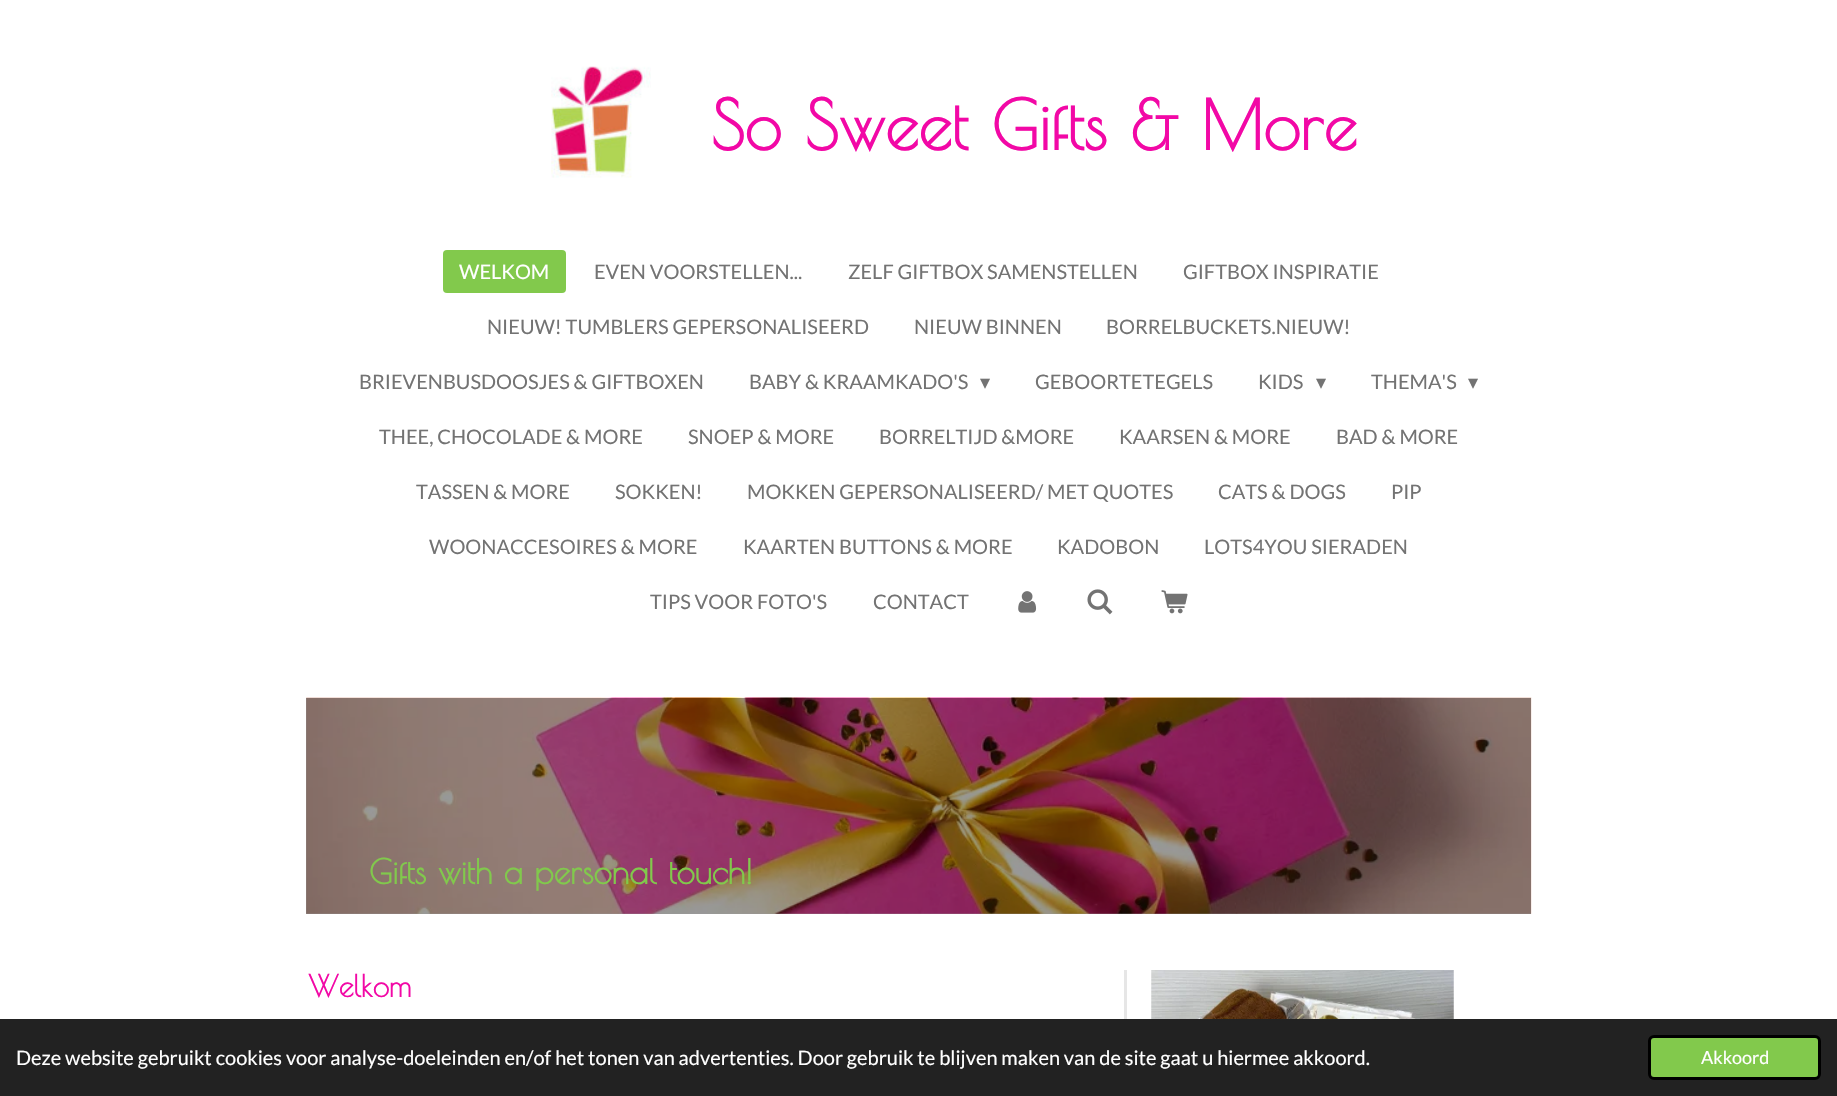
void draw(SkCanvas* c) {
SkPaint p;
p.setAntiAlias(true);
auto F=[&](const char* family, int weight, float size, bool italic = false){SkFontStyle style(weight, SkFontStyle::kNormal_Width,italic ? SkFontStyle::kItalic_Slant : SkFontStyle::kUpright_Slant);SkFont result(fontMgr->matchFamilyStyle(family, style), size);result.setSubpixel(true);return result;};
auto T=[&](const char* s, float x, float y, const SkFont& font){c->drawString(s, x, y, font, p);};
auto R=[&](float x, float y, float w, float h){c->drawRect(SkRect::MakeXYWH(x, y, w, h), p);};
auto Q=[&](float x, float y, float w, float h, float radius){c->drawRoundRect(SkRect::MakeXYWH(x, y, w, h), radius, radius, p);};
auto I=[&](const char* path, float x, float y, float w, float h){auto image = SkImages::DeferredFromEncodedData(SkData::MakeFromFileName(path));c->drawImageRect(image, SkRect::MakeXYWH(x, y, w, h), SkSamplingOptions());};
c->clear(0xffffffff);
p.setColor(0xff999999);
R(306,698,1225,216);
I("1.png",551,66,100,112);
auto f1 = F("Poiret One",700,67.5);
p.setColor(0xfff208a6);
T("So Sweet Gifts & More",711,150,f1);
p.setColor(0xff82c94c);
Q(443,250,123,43,4);
auto f2 = F("Lato",400,20);
p.setColor(0xffffffff);
T("WELKOM",459,279,f2);
p.setColor(0xff737373);
T("EVEN VOORSTELLEN...",594,279,f2);
T("ZELF GIFTBOX SAMENSTELLEN",848,279,f2);
T("GIFTBOX INSPIRATIE",1183,279,f2);
T("NIEUW! TUMBLERS GEPERSONALISEERD",487,334,f2);
T("NIEUW BINNEN",914,334,f2);
T("BORRELBUCKETS.NIEUW!",1106,334,f2);
T("BRIEVENBUSDOOSJES & GIFTBOXEN",359,389,f2);
T("BABY & KRAAMKADO'S",749,389,f2);
auto f3 = F("DejaVu Sans",400,20);
T("▾",980,389,f3);
T("GEBOORTETEGELS",1035,389,f2);
T("KIDS",1258,389,f2);
T("▾",1316,389,f3);
T("THEMA'S",1371,389,f2);
T("▾",1468,389,f3);
T("THEE, CHOCOLADE & MORE",379,444,f2);
T("SNOEP & MORE",688,444,f2);
T("BORRELTIJD &MORE",879,444,f2);
T("KAARSEN & MORE",1119,444,f2);
T("BAD & MORE",1336,444,f2);
T("TASSEN & MORE",416,499,f2);
T("SOKKEN!",615,499,f2);
T("MOKKEN GEPERSONALISEERD/ MET QUOTES",747,499,f2);
T("CATS & DOGS",1218,499,f2);
T("PIP",1391,499,f2);
T("WOONACCESOIRES & MORE",429,554,f2);
T("KAARTEN BUTTONS & MORE",743,554,f2);
T("KADOBON",1057,554,f2);
T("LOTS4YOU SIERADEN",1204,554,f2);
T("TIPS VOOR FOTO'S",650,609,f2);
T("CONTACT",873,609,f2);
I("2.png",1018,591,19,22);
I("3.png",1087,589,26,26);
I("4.png",1161,590,27,24);
I("5.png",306,697,1226,217);
auto f4 = F("Poiret One",700,33.5);
p.setColor(0xff81c94c);
T("Gifts with a personal touch!",369,884,f4);
auto f5 = F("Poiret One",700,30);
p.setColor(0xfff208a6);
T("Welkom",308,997,f5);
p.setColor(0xffe6e6e6);
R(1124,970,3,49);
I("6.png",1151,970,303,49);
p.setColor(0xff222222);
R(0,1019,1837,77);
p.setColor(0xffffffff);
T("Deze website gebruikt cookies voor analyse-doeleinden en/of het tonen van advertenties. Door gebruik te blijven maken van de site gaat u hiermee akkoord.",16,1065,f2);
p.setColor(0xff82c94c);
c->drawRoundRect(SkRect::MakeXYWH(1649.5,1036.5,170,42),4.5,4.5,p);
p.setStroke(true);
p.setStrokeWidth(3);
p.setColor(0xff000000);
c->drawRoundRect(SkRect::MakeXYWH(1649.5,1036.5,170,42),4.5,4.5,p);
auto f6 = F("Lato",400,18);
p.setStroke(false);
p.setColor(0xffffffff);
T("Akkoord",1701,1064,f6);
}
